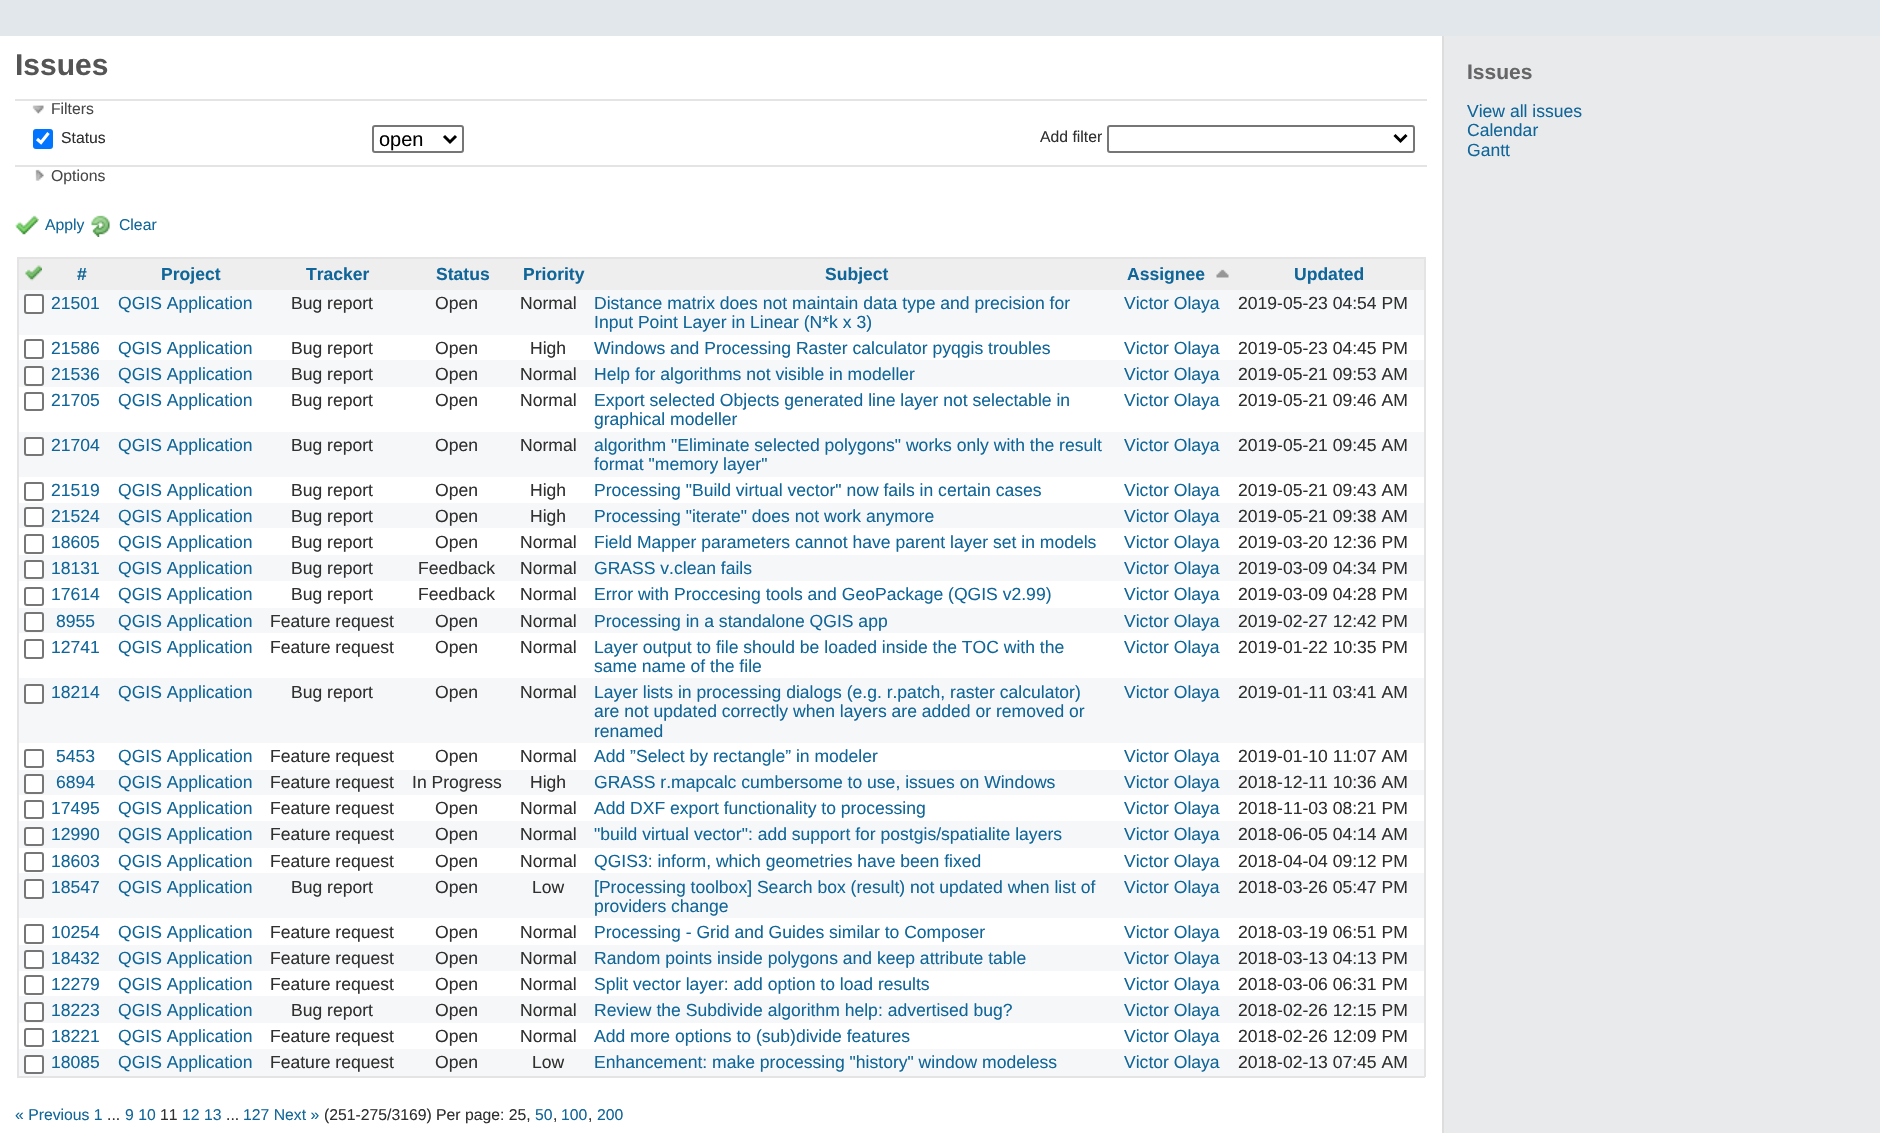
void draw(SkCanvas* c) {
SkPaint p;
p.setAntiAlias(true);
auto F=[&](const char* family, int weight, float size, bool italic = false){SkFontStyle style(weight, SkFontStyle::kNormal_Width,italic ? SkFontStyle::kItalic_Slant : SkFontStyle::kUpright_Slant);SkFont result(fontMgr->matchFamilyStyle(family, style), size);result.setSubpixel(true);return result;};
auto T=[&](const char* s, float x, float y, const SkFont& font){c->drawString(s, x, y, font, p);};
auto R=[&](float x, float y, float w, float h){c->drawRect(SkRect::MakeXYWH(x, y, w, h), p);};
auto Q=[&](float x, float y, float w, float h, float radius){c->drawRoundRect(SkRect::MakeXYWH(x, y, w, h), radius, radius, p);};
auto I=[&](const char* path, float x, float y, float w, float h){auto image = SkImages::DeferredFromEncodedData(SkData::MakeFromFileName(path));c->drawImageRect(image, SkRect::MakeXYWH(x, y, w, h), SkSamplingOptions());};
auto P=[&](const char* data, bool evenOdd = false){SkPath result = *SkParsePath::FromSVGString(data);if (evenOdd) result.setFillType(SkPathFillType::kEvenOdd);return result;};
c->clear(0xffe8eaec);
p.setColor(0xffe2e7eb);
R(0,0,1880,36);
p.setColor(0xffffffff);
R(0,36,1442,1097);
p.setColor(0xffdddddd);
R(1442,36,2,1097);
auto f1 = F("Liberation Sans",700,30);
p.setColor(0xff555555);
T("Issues",15,75,f1);
p.setColor(0xffe4e4e4);
R(15,99,1412,2);
I("1.png",32,105,12,9);
auto f2 = F("Liberation Sans",400,15.75);
p.setColor(0xff484848);
T("Filters",51,114,f2);
p.setColor(0xff0075ff);
Q(33,129,20,20,3);
p.setStroke(true);
p.setStrokeWidth(3.1);
p.setColor(0xffffffff);
c->drawPath(P("M37 139l4 3.5l7.5-9.5"),p);
p.setStroke(false);
p.setColor(0xff303030);
T("Status",61,143,f2);
p.setStroke(true);
p.setStrokeWidth(2);
p.setColor(0xff767676);
c->drawRoundRect(SkRect::MakeXYWH(373,126,90,26),2,2,p);
p.setStrokeWidth(3);
p.setColor(0xff000000);
c->drawPath(P("M444 136l6 6l6-6"),p);
auto f3 = F("Liberation Sans",400,20);
p.setStroke(false);
T("open",379,146,f3);
p.setColor(0xff303030);
T("Add filter",1040,142,f2);
p.setStroke(true);
p.setStrokeWidth(2);
p.setColor(0xff767676);
c->drawRoundRect(SkRect::MakeXYWH(1108,126,306,26),2,2,p);
p.setStrokeWidth(3);
p.setColor(0xff000000);
c->drawPath(P("M1394.5 135l6 6l6-6"),p);
p.setStroke(false);
p.setColor(0xffe4e4e4);
R(15,165,1412,2);
I("2.png",35,169,9,12);
p.setColor(0xff484848);
T("Options",51,181,f2);
I("3.png",15,215,24,20);
p.setColor(0xff116699);
T("Apply",45,230,f2);
I("4.png",91,215,19,22);
T("Clear",119,230,f2);
p.setColor(0xffe4e4e4);
R(17,257,1408,2);
R(1424,257,2,820);
R(17,1076,1408,2);
R(17,257,2,820);
p.setColor(0xffeeeeee);
R(19,259,1405,31);
I("5.png",25,265,17,16);
auto f4 = F("Liberation Sans",700,17.55);
p.setColor(0xff116699);
T("#",77,280,f4);
T("Project",161,280,f4);
T("Tracker",306,280,f4);
T("Status",436,280,f4);
T("Priority",523,280,f4);
T("Subject",825,280,f4);
T("Assignee",1127,280,f4);
I("6.png",1216,269,13,9);
T("Updated",1294,280,f4);
p.setColor(0xfff6f7f8);
R(19,290,1405,45);
p.setColor(0xffffffff);
c->drawRoundRect(SkRect::MakeXYWH(25,295,18,18),2,2,p);
p.setStroke(true);
p.setStrokeWidth(2);
p.setColor(0xff767676);
c->drawRoundRect(SkRect::MakeXYWH(25,295,18,18),2,2,p);
auto f5 = F("Liberation Sans",400,17.55);
p.setStroke(false);
p.setColor(0xff116699);
T("21501",51,309,f5);
T("QGIS Application",118,309,f5);
p.setColor(0xff303030);
T("Bug report",291,309,f5);
T("Open",435,309,f5);
T("Normal",520,309,f5);
p.setColor(0xff116699);
T("Distance matrix does not maintain data type and precision for",594,309,f5);
T("Input Point Layer in Linear (N*k x 3)",594,328,f5);
T("Victor Olaya",1124,309,f5);
p.setColor(0xff303030);
T("2019-05-23 04:54 PM",1238,309,f5);
p.setStroke(true);
p.setColor(0xff767676);
c->drawRoundRect(SkRect::MakeXYWH(25,340,18,18),2,2,p);
p.setStroke(false);
p.setColor(0xff116699);
T("21586",51,354,f5);
T("QGIS Application",118,354,f5);
p.setColor(0xff303030);
T("Bug report",291,354,f5);
T("Open",435,354,f5);
T("High",530,354,f5);
p.setColor(0xff116699);
T("Windows and Processing Raster calculator pyqgis troubles",594,354,f5);
T("Victor Olaya",1124,354,f5);
p.setColor(0xff303030);
T("2019-05-23 04:45 PM",1238,354,f5);
p.setColor(0xfff6f7f8);
R(19,360,1405,27);
p.setColor(0xffffffff);
c->drawRoundRect(SkRect::MakeXYWH(25,367,18,18),2,2,p);
p.setStroke(true);
p.setColor(0xff767676);
c->drawRoundRect(SkRect::MakeXYWH(25,367,18,18),2,2,p);
p.setStroke(false);
p.setColor(0xff116699);
T("21536",51,380,f5);
T("QGIS Application",118,380,f5);
p.setColor(0xff303030);
T("Bug report",291,380,f5);
T("Open",435,380,f5);
T("Normal",520,380,f5);
p.setColor(0xff116699);
T("Help for algorithms not visible in modeller",594,380,f5);
T("Victor Olaya",1124,380,f5);
p.setColor(0xff303030);
T("2019-05-21 09:53 AM",1238,380,f5);
p.setStroke(true);
p.setColor(0xff767676);
c->drawRoundRect(SkRect::MakeXYWH(25,393,18,17),2,2,p);
p.setStroke(false);
p.setColor(0xff116699);
T("21705",51,406,f5);
T("QGIS Application",118,406,f5);
p.setColor(0xff303030);
T("Bug report",291,406,f5);
T("Open",435,406,f5);
T("Normal",520,406,f5);
p.setColor(0xff116699);
T("Export selected Objects generated line layer not selectable in",594,406,f5);
T("graphical modeller",594,425,f5);
T("Victor Olaya",1124,406,f5);
p.setColor(0xff303030);
T("2019-05-21 09:46 AM",1238,406,f5);
p.setColor(0xfff6f7f8);
R(19,432,1405,45);
p.setColor(0xffffffff);
c->drawRoundRect(SkRect::MakeXYWH(25,438,18,17),2,2,p);
p.setStroke(true);
p.setColor(0xff767676);
c->drawRoundRect(SkRect::MakeXYWH(25,438,18,17),2,2,p);
p.setStroke(false);
p.setColor(0xff116699);
T("21704",51,451,f5);
T("QGIS Application",118,451,f5);
p.setColor(0xff303030);
T("Bug report",291,451,f5);
T("Open",435,451,f5);
T("Normal",520,451,f5);
p.setColor(0xff116699);
T("algorithm \"Eliminate selected polygons\" works only with the result",594,451,f5);
T("format \"memory layer\"",594,470,f5);
T("Victor Olaya",1124,451,f5);
p.setColor(0xff303030);
T("2019-05-21 09:45 AM",1238,451,f5);
p.setStroke(true);
p.setColor(0xff767676);
c->drawRoundRect(SkRect::MakeXYWH(25,483,18,17),2,2,p);
p.setStroke(false);
p.setColor(0xff116699);
T("21519",51,496,f5);
T("QGIS Application",118,496,f5);
p.setColor(0xff303030);
T("Bug report",291,496,f5);
T("Open",435,496,f5);
T("High",530,496,f5);
p.setColor(0xff116699);
T("Processing \"Build virtual vector\" now fails in certain cases",594,496,f5);
T("Victor Olaya",1124,496,f5);
p.setColor(0xff303030);
T("2019-05-21 09:43 AM",1238,496,f5);
p.setColor(0xfff6f7f8);
R(19,503,1405,25);
p.setColor(0xffffffff);
c->drawRoundRect(SkRect::MakeXYWH(25,508,18,18),2,2,p);
p.setStroke(true);
p.setColor(0xff767676);
c->drawRoundRect(SkRect::MakeXYWH(25,508,18,18),2,2,p);
p.setStroke(false);
p.setColor(0xff116699);
T("21524",51,522,f5);
T("QGIS Application",118,522,f5);
p.setColor(0xff303030);
T("Bug report",291,522,f5);
T("Open",435,522,f5);
T("High",530,522,f5);
p.setColor(0xff116699);
T("Processing \"iterate\" does not work anymore",594,522,f5);
T("Victor Olaya",1124,522,f5);
p.setColor(0xff303030);
T("2019-05-21 09:38 AM",1238,522,f5);
p.setStroke(true);
p.setColor(0xff767676);
c->drawRoundRect(SkRect::MakeXYWH(25,535,18,18),2,2,p);
p.setStroke(false);
p.setColor(0xff116699);
T("18605",51,548,f5);
T("QGIS Application",118,548,f5);
p.setColor(0xff303030);
T("Bug report",291,548,f5);
T("Open",435,548,f5);
T("Normal",520,548,f5);
p.setColor(0xff116699);
T("Field Mapper parameters cannot have parent layer set in models",594,548,f5);
T("Victor Olaya",1124,548,f5);
p.setColor(0xff303030);
T("2019-03-20 12:36 PM",1238,548,f5);
p.setColor(0xfff6f7f8);
R(19,555,1405,26);
p.setColor(0xffffffff);
c->drawRoundRect(SkRect::MakeXYWH(25,561,18,17),2,2,p);
p.setStroke(true);
p.setColor(0xff767676);
c->drawRoundRect(SkRect::MakeXYWH(25,561,18,17),2,2,p);
p.setStroke(false);
p.setColor(0xff116699);
T("18131",51,574,f5);
T("QGIS Application",118,574,f5);
p.setColor(0xff303030);
T("Bug report",291,574,f5);
T("Feedback",418,574,f5);
T("Normal",520,574,f5);
p.setColor(0xff116699);
T("GRASS v.clean fails",594,574,f5);
T("Victor Olaya",1124,574,f5);
p.setColor(0xff303030);
T("2019-03-09 04:34 PM",1238,574,f5);
p.setStroke(true);
p.setColor(0xff767676);
c->drawRoundRect(SkRect::MakeXYWH(25,588,18,17),2,2,p);
p.setStroke(false);
p.setColor(0xff116699);
T("17614",51,600,f5);
T("QGIS Application",118,600,f5);
p.setColor(0xff303030);
T("Bug report",291,600,f5);
T("Feedback",418,600,f5);
T("Normal",520,600,f5);
p.setColor(0xff116699);
T("Error with Proccesing tools and GeoPackage (QGIS v2.99)",594,600,f5);
T("Victor Olaya",1124,600,f5);
p.setColor(0xff303030);
T("2019-03-09 04:28 PM",1238,600,f5);
p.setColor(0xfff6f7f8);
R(19,608,1405,25);
p.setColor(0xffffffff);
c->drawRoundRect(SkRect::MakeXYWH(25,613,18,18),2,2,p);
p.setStroke(true);
p.setColor(0xff767676);
c->drawRoundRect(SkRect::MakeXYWH(25,613,18,18),2,2,p);
p.setStroke(false);
p.setColor(0xff116699);
T("8955",56,627,f5);
T("QGIS Application",118,627,f5);
p.setColor(0xff303030);
T("Feature request",270,627,f5);
T("Open",435,627,f5);
T("Normal",520,627,f5);
p.setColor(0xff116699);
T("Processing in a standalone QGIS app",594,627,f5);
T("Victor Olaya",1124,627,f5);
p.setColor(0xff303030);
T("2019-02-27 12:42 PM",1238,627,f5);
p.setStroke(true);
p.setColor(0xff767676);
c->drawRoundRect(SkRect::MakeXYWH(25,640,18,18),2,2,p);
p.setStroke(false);
p.setColor(0xff116699);
T("12741",51,653,f5);
T("QGIS Application",118,653,f5);
p.setColor(0xff303030);
T("Feature request",270,653,f5);
T("Open",435,653,f5);
T("Normal",520,653,f5);
p.setColor(0xff116699);
T("Layer output to file should be loaded inside the TOC with the",594,653,f5);
T("same name of the file",594,672,f5);
T("Victor Olaya",1124,653,f5);
p.setColor(0xff303030);
T("2019-01-22 10:35 PM",1238,653,f5);
p.setColor(0xfff6f7f8);
R(19,678,1405,65);
p.setColor(0xffffffff);
c->drawRoundRect(SkRect::MakeXYWH(25,685,18,18),2,2,p);
p.setStroke(true);
p.setColor(0xff767676);
c->drawRoundRect(SkRect::MakeXYWH(25,685,18,18),2,2,p);
p.setStroke(false);
p.setColor(0xff116699);
T("18214",51,698,f5);
T("QGIS Application",118,698,f5);
p.setColor(0xff303030);
T("Bug report",291,698,f5);
T("Open",435,698,f5);
T("Normal",520,698,f5);
p.setColor(0xff116699);
T("Layer lists in processing dialogs (e.g. r.patch, raster calculator)",594,698,f5);
T("are not updated correctly when layers are added or removed or",594,717,f5);
T("renamed",594,737,f5);
T("Victor Olaya",1124,698,f5);
p.setColor(0xff303030);
T("2019-01-11 03:41 AM",1238,698,f5);
p.setStroke(true);
p.setColor(0xff767676);
c->drawRoundRect(SkRect::MakeXYWH(25,750,18,17),2,2,p);
p.setStroke(false);
p.setColor(0xff116699);
T("5453",56,762,f5);
T("QGIS Application",118,762,f5);
p.setColor(0xff303030);
T("Feature request",270,762,f5);
T("Open",435,762,f5);
T("Normal",520,762,f5);
p.setColor(0xff116699);
T("Add ”Select by rectangle” in modeler",594,762,f5);
T("Victor Olaya",1124,762,f5);
p.setColor(0xff303030);
T("2019-01-10 11:07 AM",1238,762,f5);
p.setColor(0xfff6f7f8);
R(19,770,1405,25);
p.setColor(0xffffffff);
c->drawRoundRect(SkRect::MakeXYWH(25,775,18,18),2,2,p);
p.setStroke(true);
p.setColor(0xff767676);
c->drawRoundRect(SkRect::MakeXYWH(25,775,18,18),2,2,p);
p.setStroke(false);
p.setColor(0xff116699);
T("6894",56,788,f5);
T("QGIS Application",118,788,f5);
p.setColor(0xff303030);
T("Feature request",270,788,f5);
T("In Progress",412,788,f5);
T("High",530,788,f5);
p.setColor(0xff116699);
T("GRASS r.mapcalc cumbersome to use, issues on Windows",594,788,f5);
T("Victor Olaya",1124,788,f5);
p.setColor(0xff303030);
T("2018-12-11 10:36 AM",1238,788,f5);
p.setStroke(true);
p.setColor(0xff767676);
c->drawRoundRect(SkRect::MakeXYWH(25,801,18,17),2,2,p);
p.setStroke(false);
p.setColor(0xff116699);
T("17495",51,814,f5);
T("QGIS Application",118,814,f5);
p.setColor(0xff303030);
T("Feature request",270,814,f5);
T("Open",435,814,f5);
T("Normal",520,814,f5);
p.setColor(0xff116699);
T("Add DXF export functionality to processing",594,814,f5);
T("Victor Olaya",1124,814,f5);
p.setColor(0xff303030);
T("2018-11-03 08:21 PM",1238,814,f5);
p.setColor(0xfff6f7f8);
R(19,821,1405,27);
p.setColor(0xffffffff);
c->drawRoundRect(SkRect::MakeXYWH(25,828,18,17),2,2,p);
p.setStroke(true);
p.setColor(0xff767676);
c->drawRoundRect(SkRect::MakeXYWH(25,828,18,17),2,2,p);
p.setStroke(false);
p.setColor(0xff116699);
T("12990",51,840,f5);
T("QGIS Application",118,840,f5);
p.setColor(0xff303030);
T("Feature request",270,840,f5);
T("Open",435,840,f5);
T("Normal",520,840,f5);
p.setColor(0xff116699);
T("\"build virtual vector\": add support for postgis/spatialite layers",594,840,f5);
T("Victor Olaya",1124,840,f5);
p.setColor(0xff303030);
T("2018-06-05 04:14 AM",1238,840,f5);
p.setStroke(true);
p.setColor(0xff767676);
c->drawRoundRect(SkRect::MakeXYWH(25,853,18,18),2,2,p);
p.setStroke(false);
p.setColor(0xff116699);
T("18603",51,867,f5);
T("QGIS Application",118,867,f5);
p.setColor(0xff303030);
T("Feature request",270,867,f5);
T("Open",435,867,f5);
T("Normal",520,867,f5);
p.setColor(0xff116699);
T("QGIS3: inform, which geometries have been fixed",594,867,f5);
T("Victor Olaya",1124,867,f5);
p.setColor(0xff303030);
T("2018-04-04 09:12 PM",1238,867,f5);
p.setColor(0xfff6f7f8);
R(19,873,1405,45);
p.setColor(0xffffffff);
c->drawRoundRect(SkRect::MakeXYWH(25,880,18,18),2,2,p);
p.setStroke(true);
p.setColor(0xff767676);
c->drawRoundRect(SkRect::MakeXYWH(25,880,18,18),2,2,p);
p.setStroke(false);
p.setColor(0xff116699);
T("18547",51,893,f5);
T("QGIS Application",118,893,f5);
p.setColor(0xff303030);
T("Bug report",291,893,f5);
T("Open",435,893,f5);
T("Low",532,893,f5);
p.setColor(0xff116699);
T("[Processing toolbox] Search box (result) not updated when list of",594,893,f5);
T("providers change",594,912,f5);
T("Victor Olaya",1124,893,f5);
p.setColor(0xff303030);
T("2018-03-26 05:47 PM",1238,893,f5);
p.setStroke(true);
p.setColor(0xff767676);
c->drawRoundRect(SkRect::MakeXYWH(25,925,18,18),2,2,p);
p.setStroke(false);
p.setColor(0xff116699);
T("10254",51,938,f5);
T("QGIS Application",118,938,f5);
p.setColor(0xff303030);
T("Feature request",270,938,f5);
T("Open",435,938,f5);
T("Normal",520,938,f5);
p.setColor(0xff116699);
T("Processing - Grid and Guides similar to Composer",594,938,f5);
T("Victor Olaya",1124,938,f5);
p.setColor(0xff303030);
T("2018-03-19 06:51 PM",1238,938,f5);
p.setColor(0xfff6f7f8);
R(19,945,1405,26);
p.setColor(0xffffffff);
c->drawRoundRect(SkRect::MakeXYWH(25,951,18,17),2,2,p);
p.setStroke(true);
p.setColor(0xff767676);
c->drawRoundRect(SkRect::MakeXYWH(25,951,18,17),2,2,p);
p.setStroke(false);
p.setColor(0xff116699);
T("18432",51,964,f5);
T("QGIS Application",118,964,f5);
p.setColor(0xff303030);
T("Feature request",270,964,f5);
T("Open",435,964,f5);
T("Normal",520,964,f5);
p.setColor(0xff116699);
T("Random points inside polygons and keep attribute table",594,964,f5);
T("Victor Olaya",1124,964,f5);
p.setColor(0xff303030);
T("2018-03-13 04:13 PM",1238,964,f5);
p.setStroke(true);
p.setColor(0xff767676);
c->drawRoundRect(SkRect::MakeXYWH(25,976,18,18),2,2,p);
p.setStroke(false);
p.setColor(0xff116699);
T("12279",51,990,f5);
T("QGIS Application",118,990,f5);
p.setColor(0xff303030);
T("Feature request",270,990,f5);
T("Open",435,990,f5);
T("Normal",520,990,f5);
p.setColor(0xff116699);
T("Split vector layer: add option to load results",594,990,f5);
T("Victor Olaya",1124,990,f5);
p.setColor(0xff303030);
T("2018-03-06 06:31 PM",1238,990,f5);
p.setColor(0xfff6f7f8);
R(19,996,1405,27);
p.setColor(0xffffffff);
c->drawRoundRect(SkRect::MakeXYWH(25,1003,18,18),2,2,p);
p.setStroke(true);
p.setColor(0xff767676);
c->drawRoundRect(SkRect::MakeXYWH(25,1003,18,18),2,2,p);
p.setStroke(false);
p.setColor(0xff116699);
T("18223",51,1016,f5);
T("QGIS Application",118,1016,f5);
p.setColor(0xff303030);
T("Bug report",291,1016,f5);
T("Open",435,1016,f5);
T("Normal",520,1016,f5);
p.setColor(0xff116699);
T("Review the Subdivide algorithm help: advertised bug?",594,1016,f5);
T("Victor Olaya",1124,1016,f5);
p.setColor(0xff303030);
T("2018-02-26 12:15 PM",1238,1016,f5);
p.setStroke(true);
p.setColor(0xff767676);
c->drawRoundRect(SkRect::MakeXYWH(25,1029,18,17),2,2,p);
p.setStroke(false);
p.setColor(0xff116699);
T("18221",51,1042,f5);
T("QGIS Application",118,1042,f5);
p.setColor(0xff303030);
T("Feature request",270,1042,f5);
T("Open",435,1042,f5);
T("Normal",520,1042,f5);
p.setColor(0xff116699);
T("Add more options to (sub)divide features",594,1042,f5);
T("Victor Olaya",1124,1042,f5);
p.setColor(0xff303030);
T("2018-02-26 12:09 PM",1238,1042,f5);
p.setColor(0xfff6f7f8);
R(19,1049,1405,27);
p.setColor(0xffffffff);
c->drawRoundRect(SkRect::MakeXYWH(25,1056,18,17),2,2,p);
p.setStroke(true);
p.setColor(0xff767676);
c->drawRoundRect(SkRect::MakeXYWH(25,1056,18,17),2,2,p);
p.setStroke(false);
p.setColor(0xff116699);
T("18085",51,1068,f5);
T("QGIS Application",118,1068,f5);
p.setColor(0xff303030);
T("Feature request",270,1068,f5);
T("Open",435,1068,f5);
T("Low",532,1068,f5);
p.setColor(0xff116699);
T("Enhancement: make processing \"history\" window modeless",594,1068,f5);
T("Victor Olaya",1124,1068,f5);
p.setColor(0xff303030);
T("2018-02-13 07:45 AM",1238,1068,f5);
p.setColor(0xff116699);
T("« Previous 1",15,1120,f2);
p.setColor(0xff303030);
T("...",107,1120,f2);
p.setColor(0xff116699);
T("9 10",125,1120,f2);
p.setColor(0xff303030);
T("11",160,1120,f2);
p.setColor(0xff116699);
T("12 13",182,1120,f2);
p.setColor(0xff303030);
T("...",226,1120,f2);
p.setColor(0xff116699);
T("127 Next »",243,1120,f2);
p.setColor(0xff303030);
T("(251-275/3169) Per page: 25,",324,1120,f2);
p.setColor(0xff116699);
T("50",535,1120,f2);
p.setColor(0xff303030);
T(",",553,1120,f2);
p.setColor(0xff116699);
T("100",561,1120,f2);
p.setColor(0xff303030);
T(",",588,1120,f2);
p.setColor(0xff116699);
T("200",597,1120,f2);
auto f6 = F("Liberation Sans",700,21);
p.setColor(0xff666666);
T("Issues",1467,79,f6);
p.setColor(0xff116699);
T("View all issues",1467,117,f5);
T("Calendar",1467,136,f5);
T("Gantt",1467,156,f5);
}
